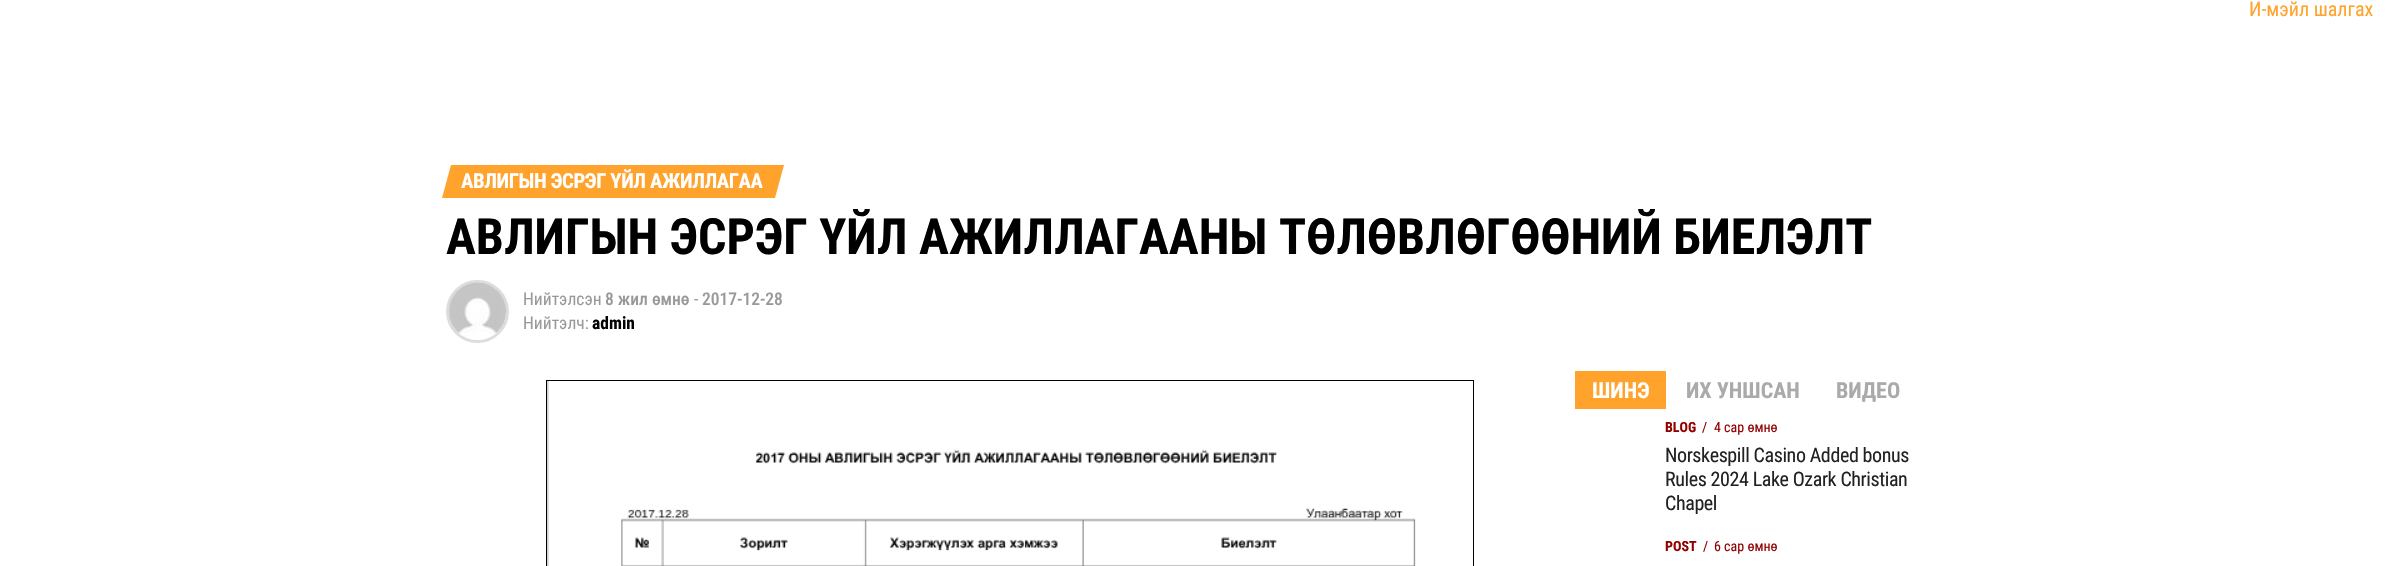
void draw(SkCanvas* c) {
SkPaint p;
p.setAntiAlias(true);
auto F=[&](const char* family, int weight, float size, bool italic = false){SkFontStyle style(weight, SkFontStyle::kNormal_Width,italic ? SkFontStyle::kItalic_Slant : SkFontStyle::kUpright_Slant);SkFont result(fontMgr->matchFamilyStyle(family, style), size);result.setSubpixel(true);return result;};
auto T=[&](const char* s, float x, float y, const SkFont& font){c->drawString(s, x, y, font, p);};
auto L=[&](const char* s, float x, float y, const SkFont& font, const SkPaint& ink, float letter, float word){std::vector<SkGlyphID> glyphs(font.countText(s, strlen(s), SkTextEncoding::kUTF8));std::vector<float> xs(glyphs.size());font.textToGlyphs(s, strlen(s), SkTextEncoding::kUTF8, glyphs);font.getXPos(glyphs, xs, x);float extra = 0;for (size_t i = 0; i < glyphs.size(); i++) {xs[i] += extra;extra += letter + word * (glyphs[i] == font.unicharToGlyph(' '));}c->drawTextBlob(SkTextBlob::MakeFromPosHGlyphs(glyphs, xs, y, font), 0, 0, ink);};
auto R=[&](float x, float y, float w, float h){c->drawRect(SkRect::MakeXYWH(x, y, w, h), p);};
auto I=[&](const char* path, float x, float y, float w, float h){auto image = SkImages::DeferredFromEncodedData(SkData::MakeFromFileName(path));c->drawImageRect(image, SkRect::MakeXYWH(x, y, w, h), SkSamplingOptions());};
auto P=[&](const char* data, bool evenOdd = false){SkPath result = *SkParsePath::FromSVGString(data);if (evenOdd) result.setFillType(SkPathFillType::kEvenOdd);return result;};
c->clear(0xffffffff);
auto f1 = F("Roboto Condensed",400,20);
p.setColor(0xffffa32c);
T("И-мэйл шалгах",2249,16,f1);
c->drawPath(P("M451 165h333l-9 33h-333z"),p);
auto f2 = F("Roboto Condensed",700,20.75);
p.setColor(0xffffffff);
L("АВЛИГЫН ЭСРЭГ ҮЙЛ АЖИЛЛАГАА",461,188,f2,p,-.4,0);
auto f3 = F("Roboto Condensed",700,50);
p.setColor(0xff000000);
T("АВЛИГЫН ЭСРЭГ ҮЙЛ АЖИЛЛАГААНЫ ТӨЛӨВЛӨГӨӨНИЙ БИЕЛЭЛТ",446,254,f3);
p.setStroke(true);
p.setStrokeWidth(3);
p.setColor(0xffdddddd);
c->drawCircle(477.5,311.5,30,p);
I("1.png",448,282,59,58);
auto f4 = F("Roboto Condensed",400,17.5);
p.setStroke(false);
p.setColor(0xff999999);
T("Нийтэлсэн",523,305,f4);
auto f5 = F("Roboto Condensed",500,17.5);
T("8 жил өмнө",605,305,f5);
T("-",694,305,f4);
T("2017-12-28",702,305,f5);
T("Нийтэлч:",523,329,f4);
auto f6 = F("Roboto Condensed",700,17.5);
p.setColor(0xff000000);
T("admin",592,329,f6);
p.setColor(0xffd3d3d3);
R(547,381,2,185);
p.setStroke(true);
p.setStrokeWidth(1);
p.setColor(0xff000000);
c->drawRect(SkRect::MakeXYWH(546.5,380.5,927,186),p);
I("2.png",548,381,868,185);
p.setStroke(false);
p.setColor(0xffffa32c);
R(1575,371,91,38);
auto f7 = F("Roboto Condensed",700,22);
p.setColor(0xffffffff);
T("ШИНЭ",1592,398,f7);
p.setColor(0xffaaaaaa);
T("ИХ УНШСАН",1686,398,f7);
T("ВИДЕО",1836,398,f7);
auto f8 = F("Roboto Condensed",700,14);
p.setColor(0xff940000);
T("BLOG",1665,432,f8);
auto f9 = F("Roboto Condensed",400,14);
T("/",1702,432,f9);
T("4 сар өмнө",1714,432,f9);
p.setColor(0xff222222);
L("Norskespill Casino Added bonus",1665,462,f1,p,-.4,0);
L("Rules 2024 Lake Ozark Christian",1665,486,f1,p,-.4,0);
L("Chapel",1665,510,f1,p,-.4,0);
p.setColor(0xff940000);
T("POST",1665,551,f8);
T("/",1703,551,f9);
T("6 сар өмнө",1714,551,f9);
}
